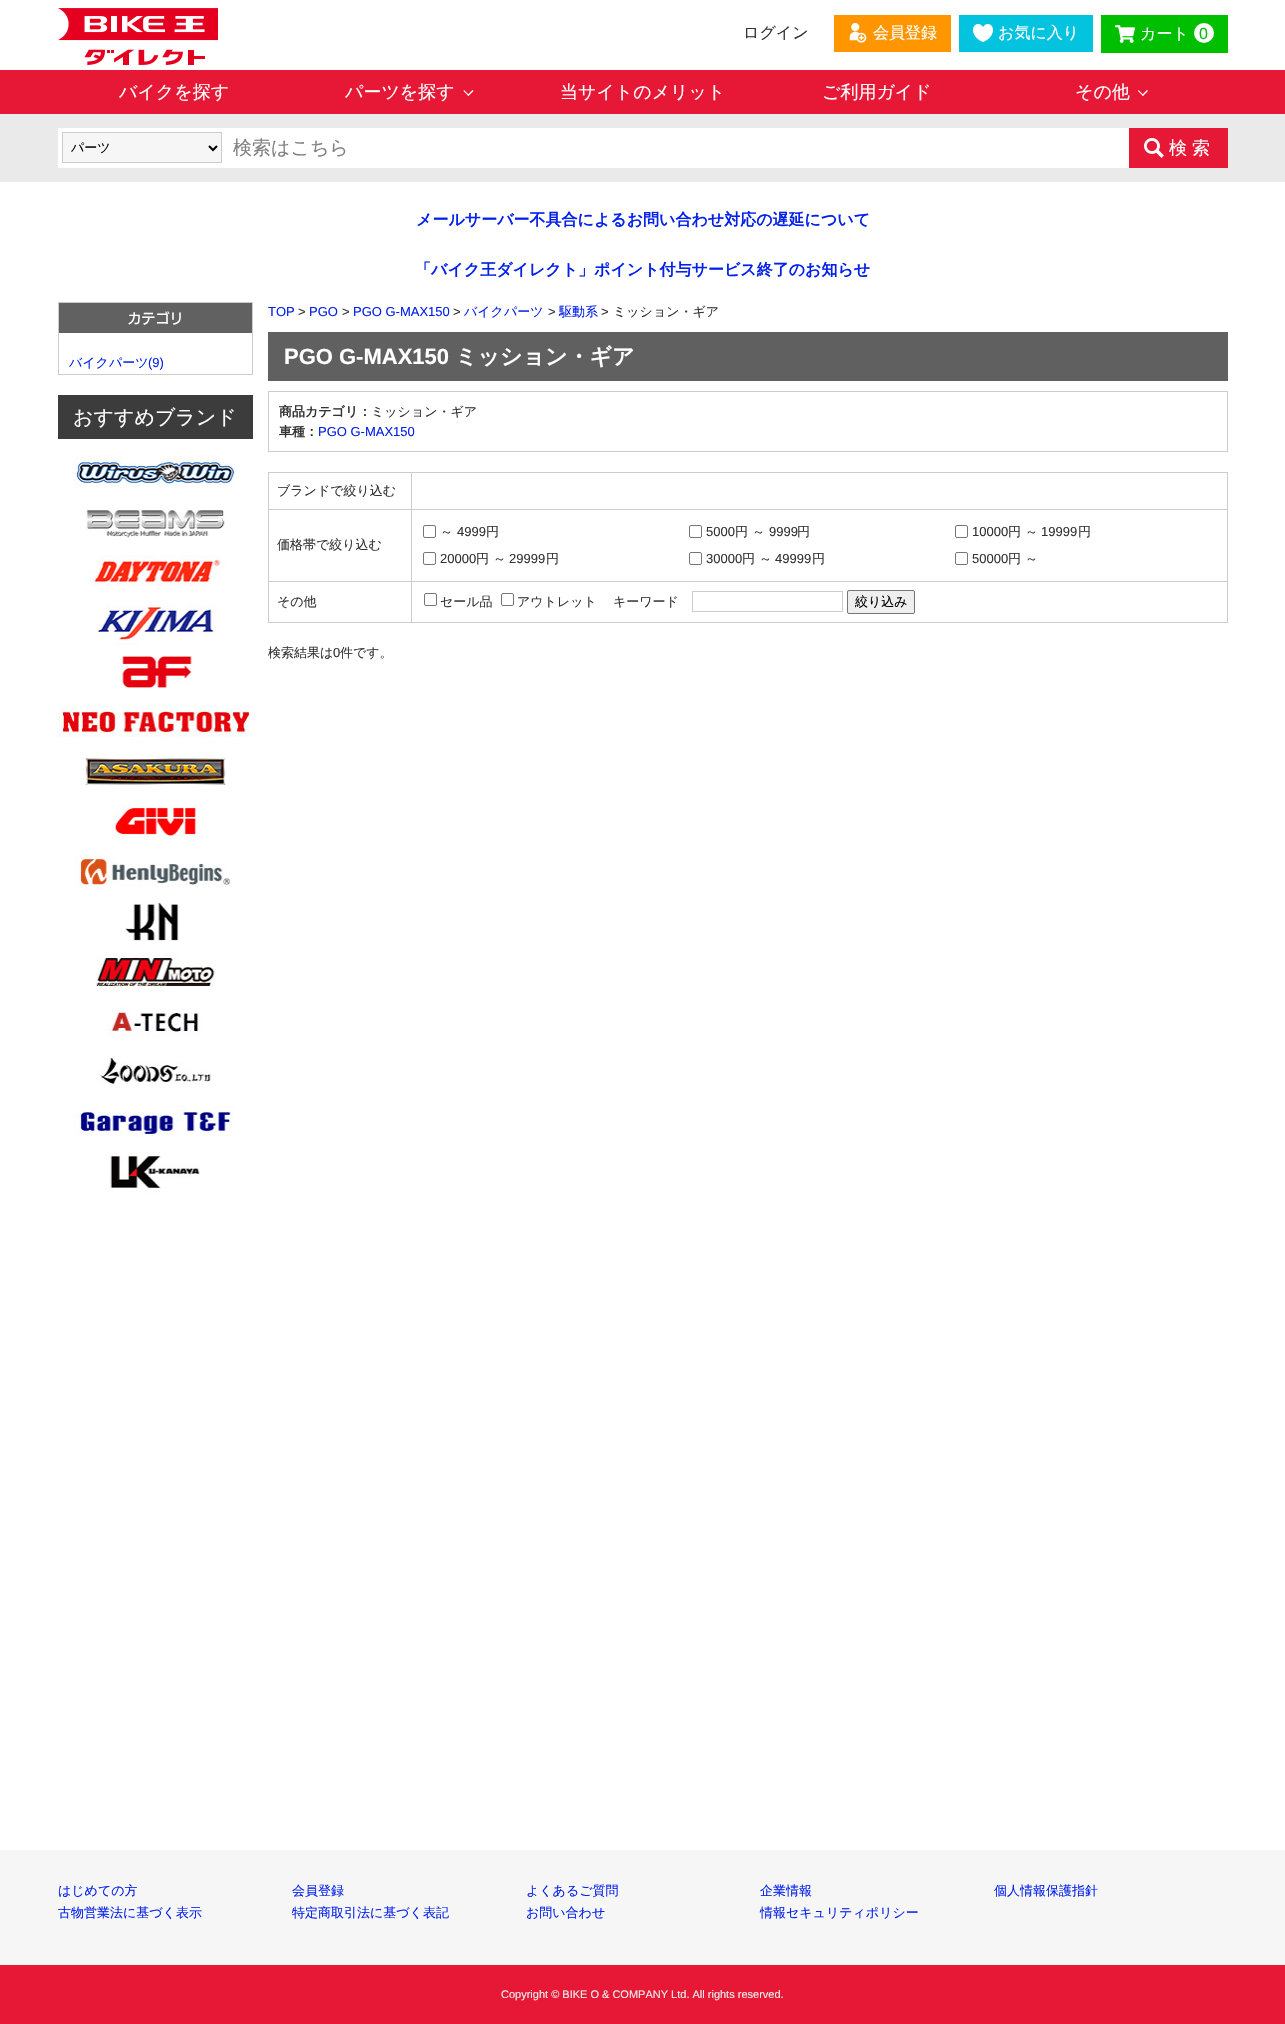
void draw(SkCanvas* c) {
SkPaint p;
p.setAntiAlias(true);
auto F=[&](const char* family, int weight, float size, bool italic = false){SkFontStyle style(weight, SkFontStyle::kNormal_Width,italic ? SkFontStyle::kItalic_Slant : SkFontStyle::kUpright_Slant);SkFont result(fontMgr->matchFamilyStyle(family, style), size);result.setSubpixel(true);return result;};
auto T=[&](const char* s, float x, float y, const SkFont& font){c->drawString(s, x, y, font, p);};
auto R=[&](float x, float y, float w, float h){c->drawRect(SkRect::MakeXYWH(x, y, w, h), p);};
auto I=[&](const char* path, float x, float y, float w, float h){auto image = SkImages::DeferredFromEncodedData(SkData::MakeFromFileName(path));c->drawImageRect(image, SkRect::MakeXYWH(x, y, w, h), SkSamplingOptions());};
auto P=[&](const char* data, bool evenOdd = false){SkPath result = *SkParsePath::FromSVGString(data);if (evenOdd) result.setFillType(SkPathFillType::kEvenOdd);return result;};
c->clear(0xffffffff);
I("1.png",58,8,160,57);
auto f1 = F("WenQuanYi Zen Hei",500,16);
p.setColor(0xff333333);
T("ログイン",743,38,f1);
p.setColor(0xffff9600);
R(834,15,117,37);
I("2.png",849,23,18,20);
p.setColor(0xffffffff);
T("会員登録",873,38,f1);
p.setColor(0xff04c3df);
R(959,15,134,37);
I("3.png",973,24,20,18);
p.setColor(0xffffffff);
T("お気に入り",998,38,f1);
p.setColor(0xff00be00);
R(1101,15,127,38);
I("4.png",1115,25,20,18);
p.setColor(0xffffffff);
T("カート",1140,39,f1);
c->drawCircle(1204,33,10,p);
auto f2 = F("Liberation Sans",400,16);
p.setColor(0xff00be00);
T("0",1199,39,f2);
p.setColor(0xffe61835);
R(0,70,1285,44);
auto f3 = F("WenQuanYi Zen Hei",500,18);
p.setColor(0xffffffff);
T("バイクを探す",119,98,f3);
T("パーツを探す",345,98,f3);
c->drawPath(P("M472.5 90l1 1l-5 5l-1-1z"),p);
c->drawPath(P("M464 90l5 5l-.5 1l-5-5z"),p);
T("当サイトのメリット",560,98,f3);
T("ご利用ガイド",822,98,f3);
T("その他",1075,98,f3);
c->drawPath(P("M1147 90l1 1l-5 5l-1-1z"),p);
c->drawPath(P("M1138.5 90l5 5l-.5 1l-5-5z"),p);
p.setColor(0xffeaeaea);
R(0,114,1285,68);
p.setColor(0xffffffff);
R(58,128,1071,40);
p.setColor(0xfff6f6f6);
c->drawRect(SkRect::MakeXYWH(62.5,132.5,159,30),p);
p.setStroke(true);
p.setStrokeWidth(1);
p.setColor(0xffcccccc);
c->drawRect(SkRect::MakeXYWH(62.5,132.5,159,30),p);
p.setStrokeWidth(2);
p.setColor(0xff000000);
c->drawPath(P("M209 146l4 4l4-4"),p);
auto f4 = F("WenQuanYi Zen Hei",500,13);
p.setStroke(false);
T("パーツ",71,152,f4);
auto f5 = F("WenQuanYi Zen Hei",500,19);
p.setColor(0xff808080);
T("検索はこちら",233,154,f5);
p.setColor(0xffe61835);
R(1129,128,99,40);
I("5.png",1144,138,20,20);
p.setColor(0xffffffff);
T("検",1169,154,f3);
T("索",1192,154,f3);
auto f6 = F("WenQuanYi Zen Hei",700,16);
p.setColor(0xff0421ea);
T("メールサーバー不具合によるお問い合わせ対応の遅延について",416,225,f6);
T("「バイク王ダイレクト」ポイント付与サービス終了のお知らせ",415,275,f6);
p.setStroke(true);
p.setStrokeWidth(1);
p.setColor(0xffcccccc);
c->drawRect(SkRect::MakeXYWH(58.5,302.5,194,72),p);
I("6.png",59,303,193,30);
p.setStroke(false);
p.setColor(0xff0421ea);
T("バイクパーツ",69,367,f4);
auto f7 = F("Liberation Sans",400,13);
T("(9)",148,367,f7);
p.setColor(0xff3c3c3c);
R(58,395,195,44);
auto f8 = F("WenQuanYi Zen Hei",500,20);
p.setColor(0xffffffff);
T("おすすめブランド",73,424,f8);
I("7.png",74,455,166,32);
I("8.png",86,508,139,30);
I("9.png",90,555,135,32);
I("10.png",97,605,120,40);
I("11.png",122,656,71,34);
I("12.png",58,705,192,32);
I("13.png",85,758,141,27);
I("14.png",114,805,87,32);
I("15.png",74,855,158,32);
I("16.png",125,902,54,39);
I("17.png",96,955,120,32);
I("18.png",107,1005,94,32);
I("19.png",98,1057,113,28);
I("20.png",74,1105,159,32);
I("21.png",106,1156,94,38);
p.setColor(0xff0421ea);
T("TOP",268,316,f7);
p.setColor(0xff333333);
T(">",298,316,f7);
p.setColor(0xff0421ea);
T("PGO",309,316,f7);
p.setColor(0xff333333);
T(">",342,316,f7);
p.setColor(0xff0421ea);
T("PGO G-MAX150",353,316,f7);
p.setColor(0xff333333);
T(">",453,316,f7);
p.setColor(0xff0421ea);
T("バイクパーツ",464,316,f4);
p.setColor(0xff333333);
T(">",548,316,f7);
p.setColor(0xff0421ea);
T("駆動系",559,316,f4);
p.setColor(0xff333333);
T(">",601,316,f7);
T("ミッション・ギア",613,316,f4);
p.setColor(0xff606060);
R(268,332,960,49);
auto f9 = F("Liberation Sans",700,22);
p.setColor(0xffffffff);
T("PGO G-MAX150",284,364,f9);
auto f10 = F("WenQuanYi Zen Hei",700,22);
T("ミッション・ギア",455,364,f10);
p.setStroke(true);
p.setColor(0xffcccccc);
c->drawRect(SkRect::MakeXYWH(268.5,391.5,959,60),p);
auto f11 = F("WenQuanYi Zen Hei",700,13);
p.setStroke(false);
p.setColor(0xff333333);
T("商品カテゴリ：",279,416,f11);
T("ミッション・ギア",371,416,f4);
T("車種：",279,436,f11);
p.setColor(0xff0421ea);
T("PGO G-MAX150",318,436,f7);
p.setColor(0xffcccccc);
R(268,472,960,1);
R(268,472,1,151);
R(1227,472,1,151);
R(411,622,817,1);
R(411,581,1,42);
R(411,581,817,1);
R(411,509,1,73);
R(411,509,817,1);
R(411,472,1,38);
R(268,509,144,1);
p.setColor(0xff333333);
T("ブランドで絞り込む",277,495,f4);
p.setColor(0xffcccccc);
R(268,581,144,1);
p.setColor(0xff333333);
T("価格帯で絞り込む",277,549,f4);
p.setStroke(true);
p.setColor(0xff767676);
c->drawRoundRect(SkRect::MakeXYWH(423.5,525.5,12,12),1.5,1.5,p);
p.setStroke(false);
p.setColor(0xff333333);
T("～",440,536,f4);
T("4999",457,536,f7);
T("円",486,536,f4);
p.setStroke(true);
p.setColor(0xff767676);
c->drawRoundRect(SkRect::MakeXYWH(689.5,525.5,12,12),1.5,1.5,p);
p.setStroke(false);
p.setColor(0xff333333);
T("5000",706,536,f7);
T("円 ～",735,536,f4);
T("9999",769,536,f7);
T("円",797,536,f4);
p.setStroke(true);
p.setColor(0xff767676);
c->drawRoundRect(SkRect::MakeXYWH(955.5,525.5,12,12),1.5,1.5,p);
p.setStroke(false);
p.setColor(0xff333333);
T("10000",972,536,f7);
T("円 ～",1008,536,f4);
T("19999",1041,536,f7);
T("円",1078,536,f4);
p.setStroke(true);
p.setColor(0xff767676);
c->drawRoundRect(SkRect::MakeXYWH(423.5,552.5,12,12),1.5,1.5,p);
p.setStroke(false);
p.setColor(0xff333333);
T("20000",440,563,f7);
T("円 ～",476,563,f4);
T("29999",509,563,f7);
T("円",546,563,f4);
p.setStroke(true);
p.setColor(0xff767676);
c->drawRoundRect(SkRect::MakeXYWH(689.5,552.5,12,12),1.5,1.5,p);
p.setStroke(false);
p.setColor(0xff333333);
T("30000",706,563,f7);
T("円 ～",742,563,f4);
T("49999",775,563,f7);
T("円",812,563,f4);
p.setStroke(true);
p.setColor(0xff767676);
c->drawRoundRect(SkRect::MakeXYWH(955.5,552.5,12,12),1.5,1.5,p);
p.setStroke(false);
p.setColor(0xff333333);
T("50000",972,563,f7);
T("円 ～",1008,563,f4);
p.setColor(0xffcccccc);
R(268,622,144,1);
p.setColor(0xff333333);
T("その他",277,606,f4);
p.setStroke(true);
p.setColor(0xff767676);
c->drawRoundRect(SkRect::MakeXYWH(424.5,593.5,12,12),1.5,1.5,p);
p.setStroke(false);
p.setColor(0xff333333);
T("セール品",440,606,f4);
p.setStroke(true);
p.setColor(0xff767676);
c->drawRoundRect(SkRect::MakeXYWH(501.5,593.5,12,12),1.5,1.5,p);
p.setStroke(false);
p.setColor(0xff333333);
T("アウトレット",517,606,f4);
T("キーワード",613,606,f4);
p.setStroke(true);
p.setColor(0xffcccccc);
c->drawRect(SkRect::MakeXYWH(692.5,591.5,150,20),p);
p.setStroke(false);
p.setColor(0xffefefef);
c->drawRoundRect(SkRect::MakeXYWH(847.5,590.5,67,23),1.5,1.5,p);
p.setStroke(true);
p.setColor(0xff767676);
c->drawRoundRect(SkRect::MakeXYWH(847.5,590.5,67,23),1.5,1.5,p);
p.setStroke(false);
p.setColor(0xff000000);
T("絞り込み",855,606,f4);
p.setColor(0xff333333);
T("検索結果は",268,657,f4);
T("0",333,657,f7);
T("件です。",340,657,f4);
p.setColor(0xfff6f6f6);
R(0,1850,1285,115);
p.setColor(0xff0421ea);
T("はじめての方",58,1895,f4);
T("会員登録",292,1895,f4);
T("よくあるご質問",526,1895,f4);
T("企業情報",760,1895,f4);
T("個人情報保護指針",994,1895,f4);
T("古物営業法に基づく表示",58,1917,f4);
T("特定商取引法に基づく表記",292,1917,f4);
T("お問い合わせ",526,1917,f4);
T("情報セキュリティポリシー",760,1917,f4);
p.setColor(0xffe61835);
R(0,1965,1285,59);
auto f12 = F("Liberation Sans",400,11);
p.setColor(0xffeeeeee);
T("Copyright © BIKE O & COMPANY Ltd. All rights reserved.",501,1998,f12);
}
